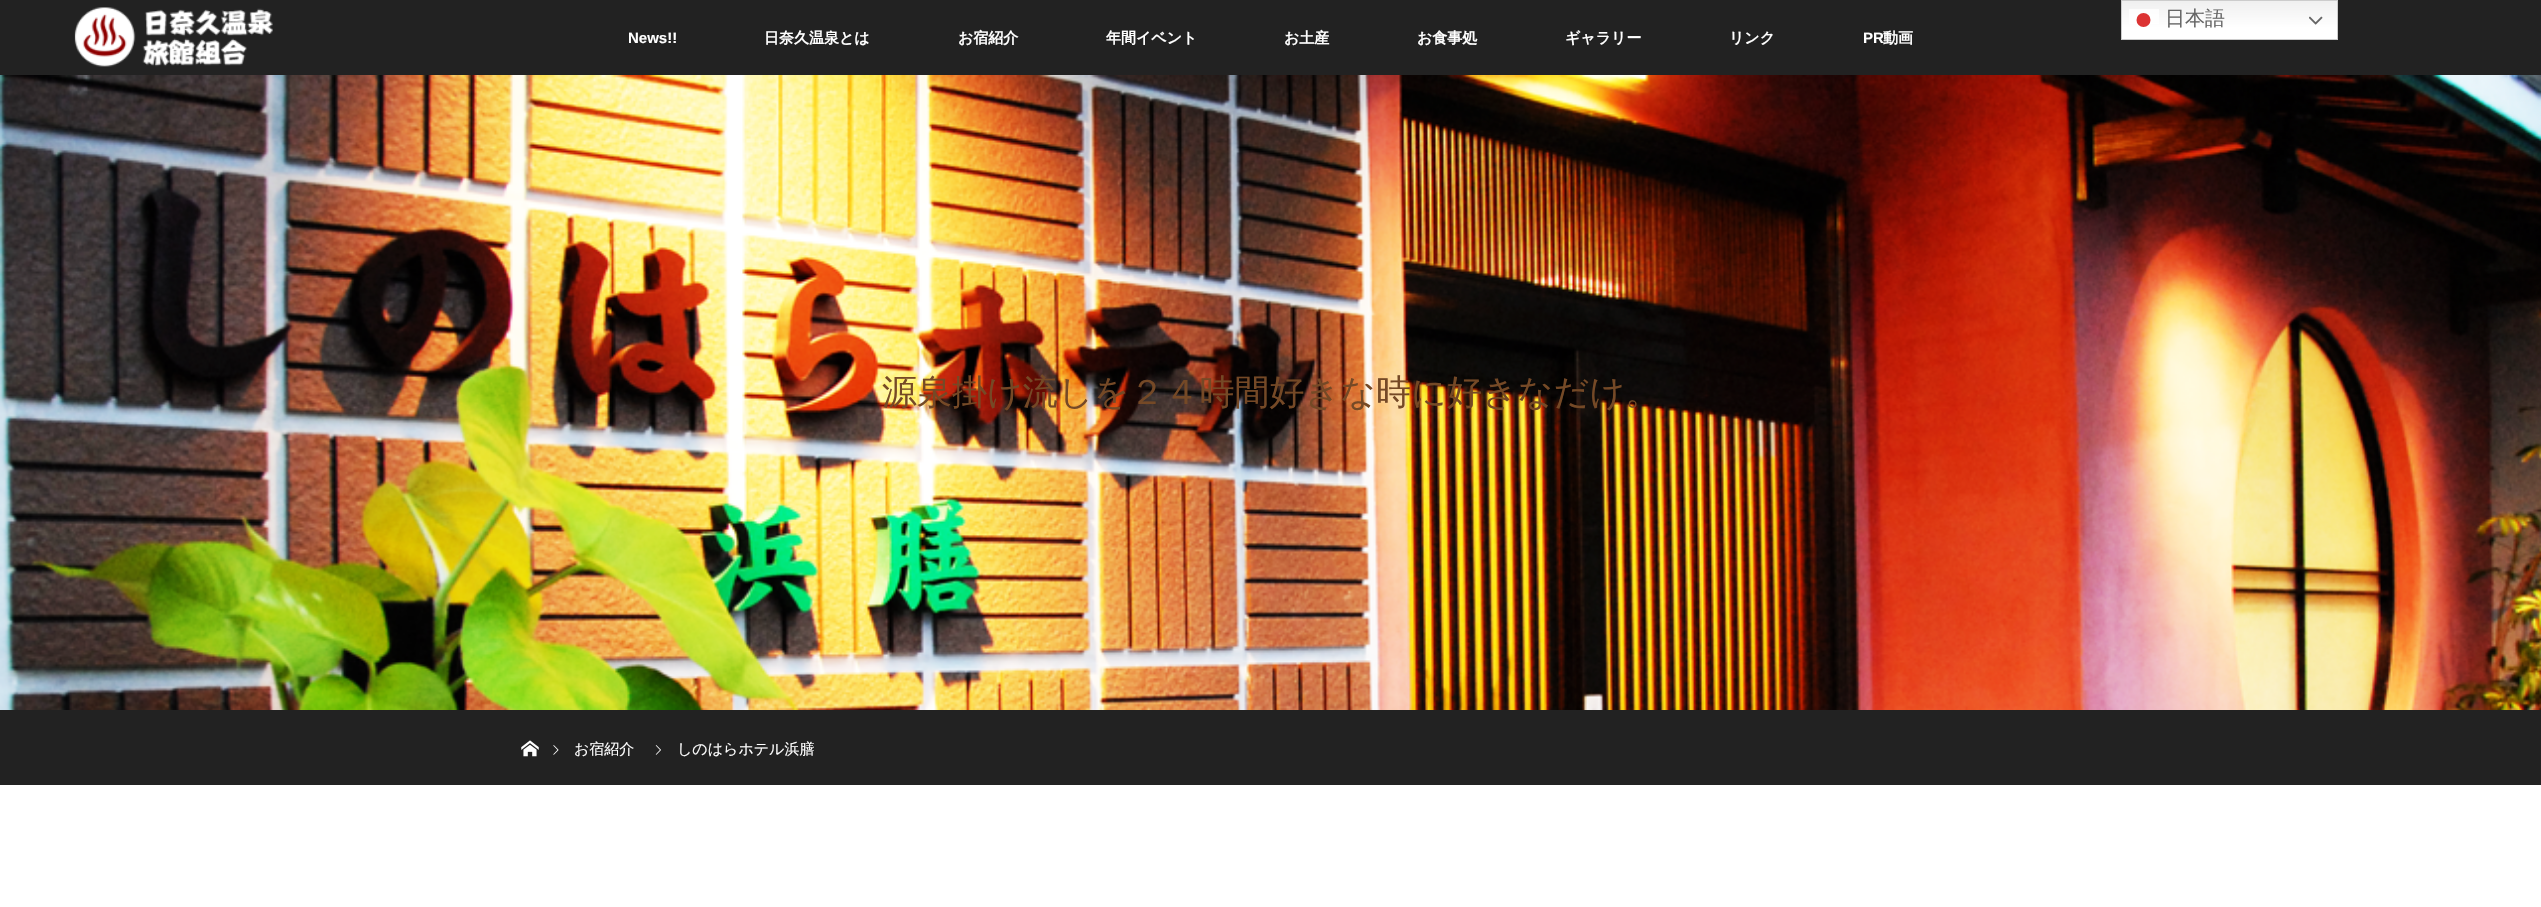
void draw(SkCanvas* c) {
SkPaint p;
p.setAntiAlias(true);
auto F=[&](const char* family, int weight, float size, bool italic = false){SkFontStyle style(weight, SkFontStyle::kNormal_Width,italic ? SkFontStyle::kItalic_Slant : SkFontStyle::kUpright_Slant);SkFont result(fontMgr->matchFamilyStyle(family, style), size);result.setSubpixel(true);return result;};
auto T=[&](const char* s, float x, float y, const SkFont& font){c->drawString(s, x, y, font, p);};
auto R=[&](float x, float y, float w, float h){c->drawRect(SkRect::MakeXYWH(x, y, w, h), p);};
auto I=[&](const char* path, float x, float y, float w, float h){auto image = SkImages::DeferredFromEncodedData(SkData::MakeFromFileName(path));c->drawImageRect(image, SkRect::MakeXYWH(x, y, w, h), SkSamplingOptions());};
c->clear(0xffffffff);
p.setColor(0xff222222);
R(0,0,2541,75);
{
const SkColor colors[] = {0xffefefef,0xffffffff};
const float stops[] = {0,.7};
const SkPoint ends[] = {{2229,0}, {2229,40}};
p.setShader(SkGradientShader::MakeLinear(ends, colors, stops, 2, SkTileMode::kClamp));
p.setAlpha(255);
}
R(2122,1,215,38);
{
const SkColor colors[] = {0xfffcfcfc,0xffffffff};
const float stops[] = {0,.7};
const SkPoint ends[] = {{2229,0}, {2229,40}};
p.setShader(SkGradientShader::MakeLinear(ends, colors, stops, 2, SkTileMode::kClamp));
p.setAlpha(255);
}
R(2129,9,30,15);
p.setStroke(true);
p.setStrokeWidth(1);
p.setShader(nullptr);
p.setColor(0xffcccccc);
c->drawRect(SkRect::MakeXYWH(2121.5,.5,216,39),p);
p.setStroke(false);
p.setColor(0xffdc3333);
c->drawCircle(2143.5,20,7,p);
auto f1 = F("WenQuanYi Zen Hei",500,20);
p.setColor(0xff666666);
T("日本語",2165,25,f1);
I("1.png",2309,16,14,9);
I("2.png",74,7,199,60);
auto f2 = F("Liberation Sans",700,15);
p.setColor(0xffffffff);
T("News!!",628,43,f2);
auto f3 = F("WenQuanYi Zen Hei",700,15);
T("日奈久温泉とは",764,43,f3);
T("お宿紹介",958,43,f3);
T("年間イベント",1106,43,f3);
T("お土産",1284,43,f3);
T("お食事処",1417,43,f3);
T("ギャラリー",1565,43,f3);
T("リンク",1729,43,f3);
T("PR",1863,43,f2);
T("動画",1883,43,f3);
I("3.png",0,75,2541,635);
auto f4 = F("WenQuanYi Zen Hei",500,35);
p.setColor(0xff754926);
T("源泉掛け流しを２４時間好きな時に好きなだけ。",882,404,f4);
p.setColor(0xff222222);
R(0,710,2541,75);
I("4.png",521,740,18,17);
I("5.png",553,745,6,10);
auto f5 = F("WenQuanYi Zen Hei",500,15);
p.setColor(0xffffffff);
T("お宿紹介",574,754,f5);
I("6.png",655,745,6,10);
T("しのはらホテル浜膳",677,754,f5);
}
